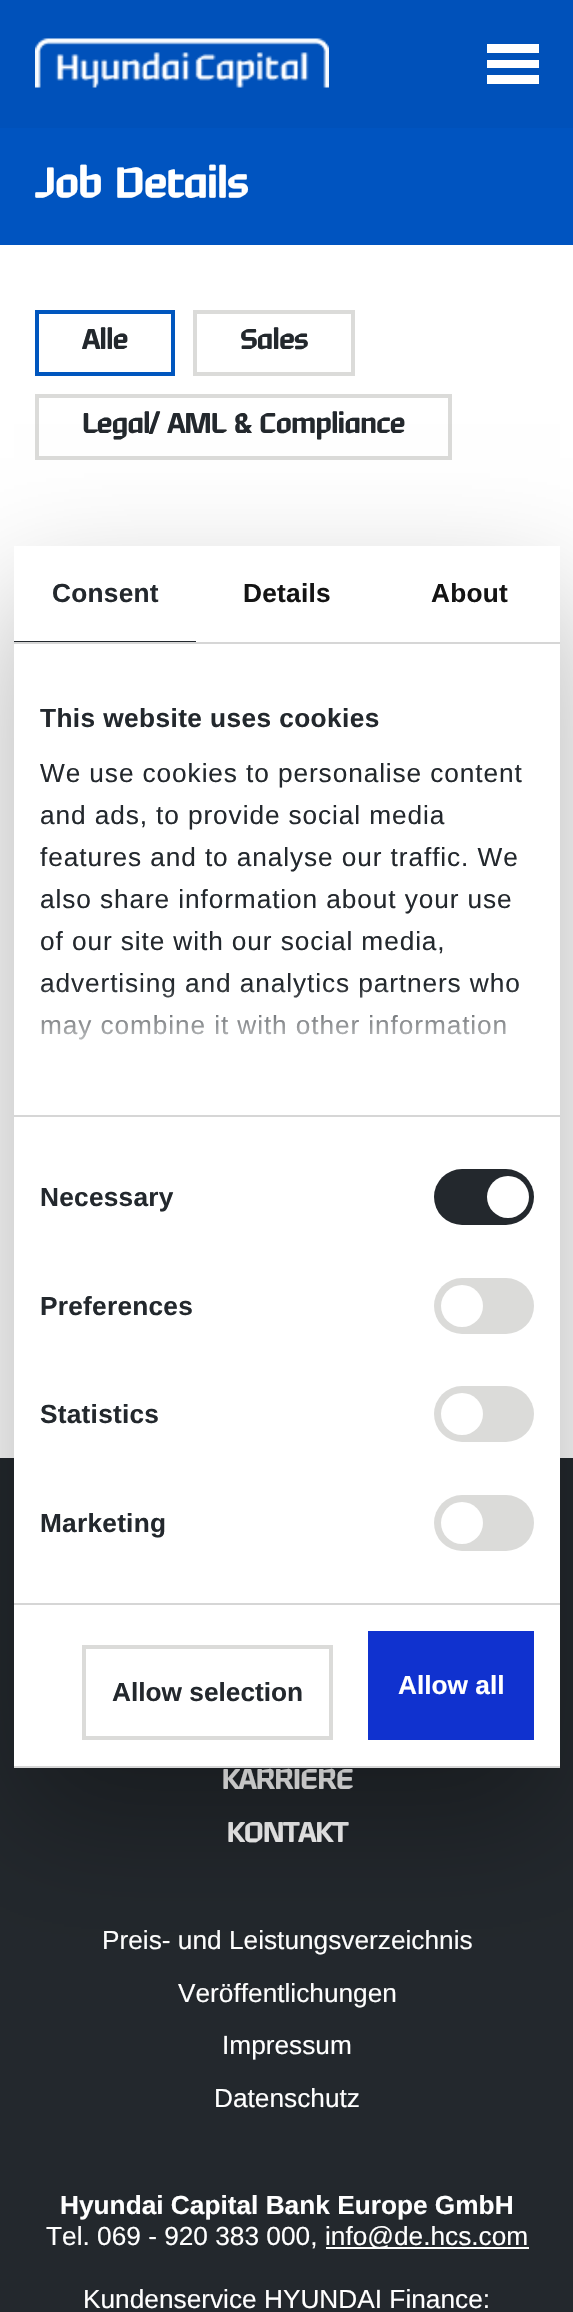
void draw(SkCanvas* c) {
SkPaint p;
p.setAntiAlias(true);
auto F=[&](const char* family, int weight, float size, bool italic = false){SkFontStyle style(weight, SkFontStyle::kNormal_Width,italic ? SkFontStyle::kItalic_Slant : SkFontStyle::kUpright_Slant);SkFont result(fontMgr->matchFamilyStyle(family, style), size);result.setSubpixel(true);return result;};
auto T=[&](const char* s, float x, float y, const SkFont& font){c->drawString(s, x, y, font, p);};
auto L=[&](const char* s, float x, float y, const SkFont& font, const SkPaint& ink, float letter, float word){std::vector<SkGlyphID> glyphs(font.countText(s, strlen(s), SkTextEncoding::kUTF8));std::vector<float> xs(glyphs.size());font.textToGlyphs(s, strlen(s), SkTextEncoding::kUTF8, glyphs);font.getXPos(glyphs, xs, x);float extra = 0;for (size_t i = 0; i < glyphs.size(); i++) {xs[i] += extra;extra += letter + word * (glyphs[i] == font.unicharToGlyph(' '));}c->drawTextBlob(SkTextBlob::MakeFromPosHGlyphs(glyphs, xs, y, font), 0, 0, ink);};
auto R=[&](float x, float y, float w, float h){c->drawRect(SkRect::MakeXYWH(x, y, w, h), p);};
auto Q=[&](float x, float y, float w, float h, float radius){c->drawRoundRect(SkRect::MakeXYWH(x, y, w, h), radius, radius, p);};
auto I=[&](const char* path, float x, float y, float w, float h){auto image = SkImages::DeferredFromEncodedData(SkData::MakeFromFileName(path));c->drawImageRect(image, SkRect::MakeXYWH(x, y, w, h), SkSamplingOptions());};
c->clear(0xffffffff);
p.setColor(0xff0054c0);
R(0,128,573,117);
p.setColor(0xff0051ba);
R(0,0,573,128);
I("1.png",35,38,294,50);
p.setColor(0xffffffff);
R(487,44,52,9);
R(487,60,52,8);
R(487,75,52,9);
auto f1 = F("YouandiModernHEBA",700,39.5);
T("Job Details",35,196,f1);
p.setStroke(true);
p.setStrokeWidth(4);
p.setColor(0xff0056be);
c->drawRect(SkRect::MakeXYWH(37,312,136,62),p);
auto f2 = F("YouandiModernHEBA",700,26.25);
p.setStroke(false);
p.setColor(0xff23282d);
T("Alle",82,348,f2);
p.setStroke(true);
p.setColor(0xffdbdbd9);
c->drawRect(SkRect::MakeXYWH(195,312,158,62),p);
p.setStroke(false);
p.setColor(0xff23282d);
T("Sales",240,348,f2);
p.setStroke(true);
p.setColor(0xffdbdbd9);
c->drawRect(SkRect::MakeXYWH(37,396,413,62),p);
p.setStroke(false);
p.setColor(0xff23282d);
T("Legal/ AML & Compliance",82,432,f2);
R(0,1458,573,854);
p.setColor(0xffffffff);
T("KARRIERE",222,1788,f2);
T("KONTAKT",227,1841,f2);
auto f3 = F("Liberation Sans",400,26.25);
T("Preis- und Leistungsverzeichnis",102,1949,f3);
T("Veröffentlichungen",178,2002,f3);
T("Impressum",222,2054,f3);
T("Datenschutz",214,2107,f3);
auto f4 = F("Liberation Sans",700,26.25);
T("Hyundai Capital Bank Europe GmbH",60,2214,f4);
T("Tel. 069 - 920 383 000,",46,2245,f3);
R(326,2247,203,2);
T("info@de.hcs.com",325,2245,f3);
T("Kundenservice HYUNDAI Finance:",83,2308,f3);
p.setColor(0x4d000000);
p.setMaskFilter(SkMaskFilter::MakeBlur(kNormal_SkBlurStyle, 59.5));
c->drawRect(SkRect::MakeXYWH(14,602,546,1222),p);
p.setMaskFilter(nullptr);
p.setColor(0xffffffff);
R(14,546,546,1220);
p.setColor(0xffd6d6d6);
R(14,642,546,2);
p.setColor(0xff23282d);
R(14,641,182,1);
L("Consent",52,602,f4,p,.25,0);
p.setColor(0xff141414);
L("Details",243,602,f4,p,.25,0);
L("About",431,602,f4,p,.25,0);
p.setColor(0xffd6d6d6);
R(14,1115,546,2);
p.setColor(0xff23282d);
L("This website uses cookies",40,727,f4,p,.4,0);
L("We use cookies to personalise content",40,782,f3,p,.9,0);
L("and ads, to provide social media",40,824,f3,p,.9,0);
L("features and to analyse our traffic. We",40,866,f3,p,.9,0);
L("also share information about your use",40,908,f3,p,.9,0);
L("of our site with our social media,",40,950,f3,p,.9,0);
L("advertising and analytics partners who",40,992,f3,p,.9,0);
L("may combine it with other information",40,1034,f3,p,.9,0);
{
const SkColor colors[] = {0xffffffff,0xccffffff,0x00ffffff};
const float stops[] = {0,.5,1};
const SkPoint ends[] = {{276,1115}, {276,984}};
p.setShader(SkGradientShader::MakeLinear(ends, colors, stops, 3, SkTileMode::kClamp));
p.setAlpha(255);
}
R(41,986,477,54);
p.setShader(nullptr);
p.setColor(0xffd6d6d6);
R(14,1603,546,2);
p.setColor(0xff23282d);
L("Necessary",40,1206,f4,p,.25,0);
Q(434,1169,100,56,28);
p.setColor(0xffffffff);
c->drawCircle(508,1197,21,p);
p.setColor(0xff23282d);
L("Preferences",40,1315,f4,p,.25,0);
p.setColor(0xffdbdbd9);
Q(434,1278,100,56,28);
p.setColor(0xffffffff);
c->drawCircle(462,1306,21,p);
p.setColor(0xff23282d);
L("Statistics",40,1423,f4,p,.25,0);
p.setColor(0xffdbdbd9);
Q(434,1386,100,56,28);
p.setColor(0xffffffff);
c->drawCircle(462,1414,21,p);
p.setColor(0xff23282d);
L("Marketing",40,1532,f4,p,.25,0);
p.setColor(0xffdbdbd9);
Q(434,1495,100,56,28);
p.setColor(0xffffffff);
c->drawCircle(462,1523,21,p);
p.setColor(0xffd6d6d6);
R(14,1766,546,2);
p.setStroke(true);
p.setColor(0xffdbdbd9);
c->drawRect(SkRect::MakeXYWH(84,1647,247,91),p);
p.setStroke(false);
p.setColor(0xff23282d);
T("Allow selection",112,1701,f4);
p.setColor(0xff1032cf);
R(368,1631,166,109);
p.setColor(0xffffffff);
T("Allow all",398,1694,f4);
}
